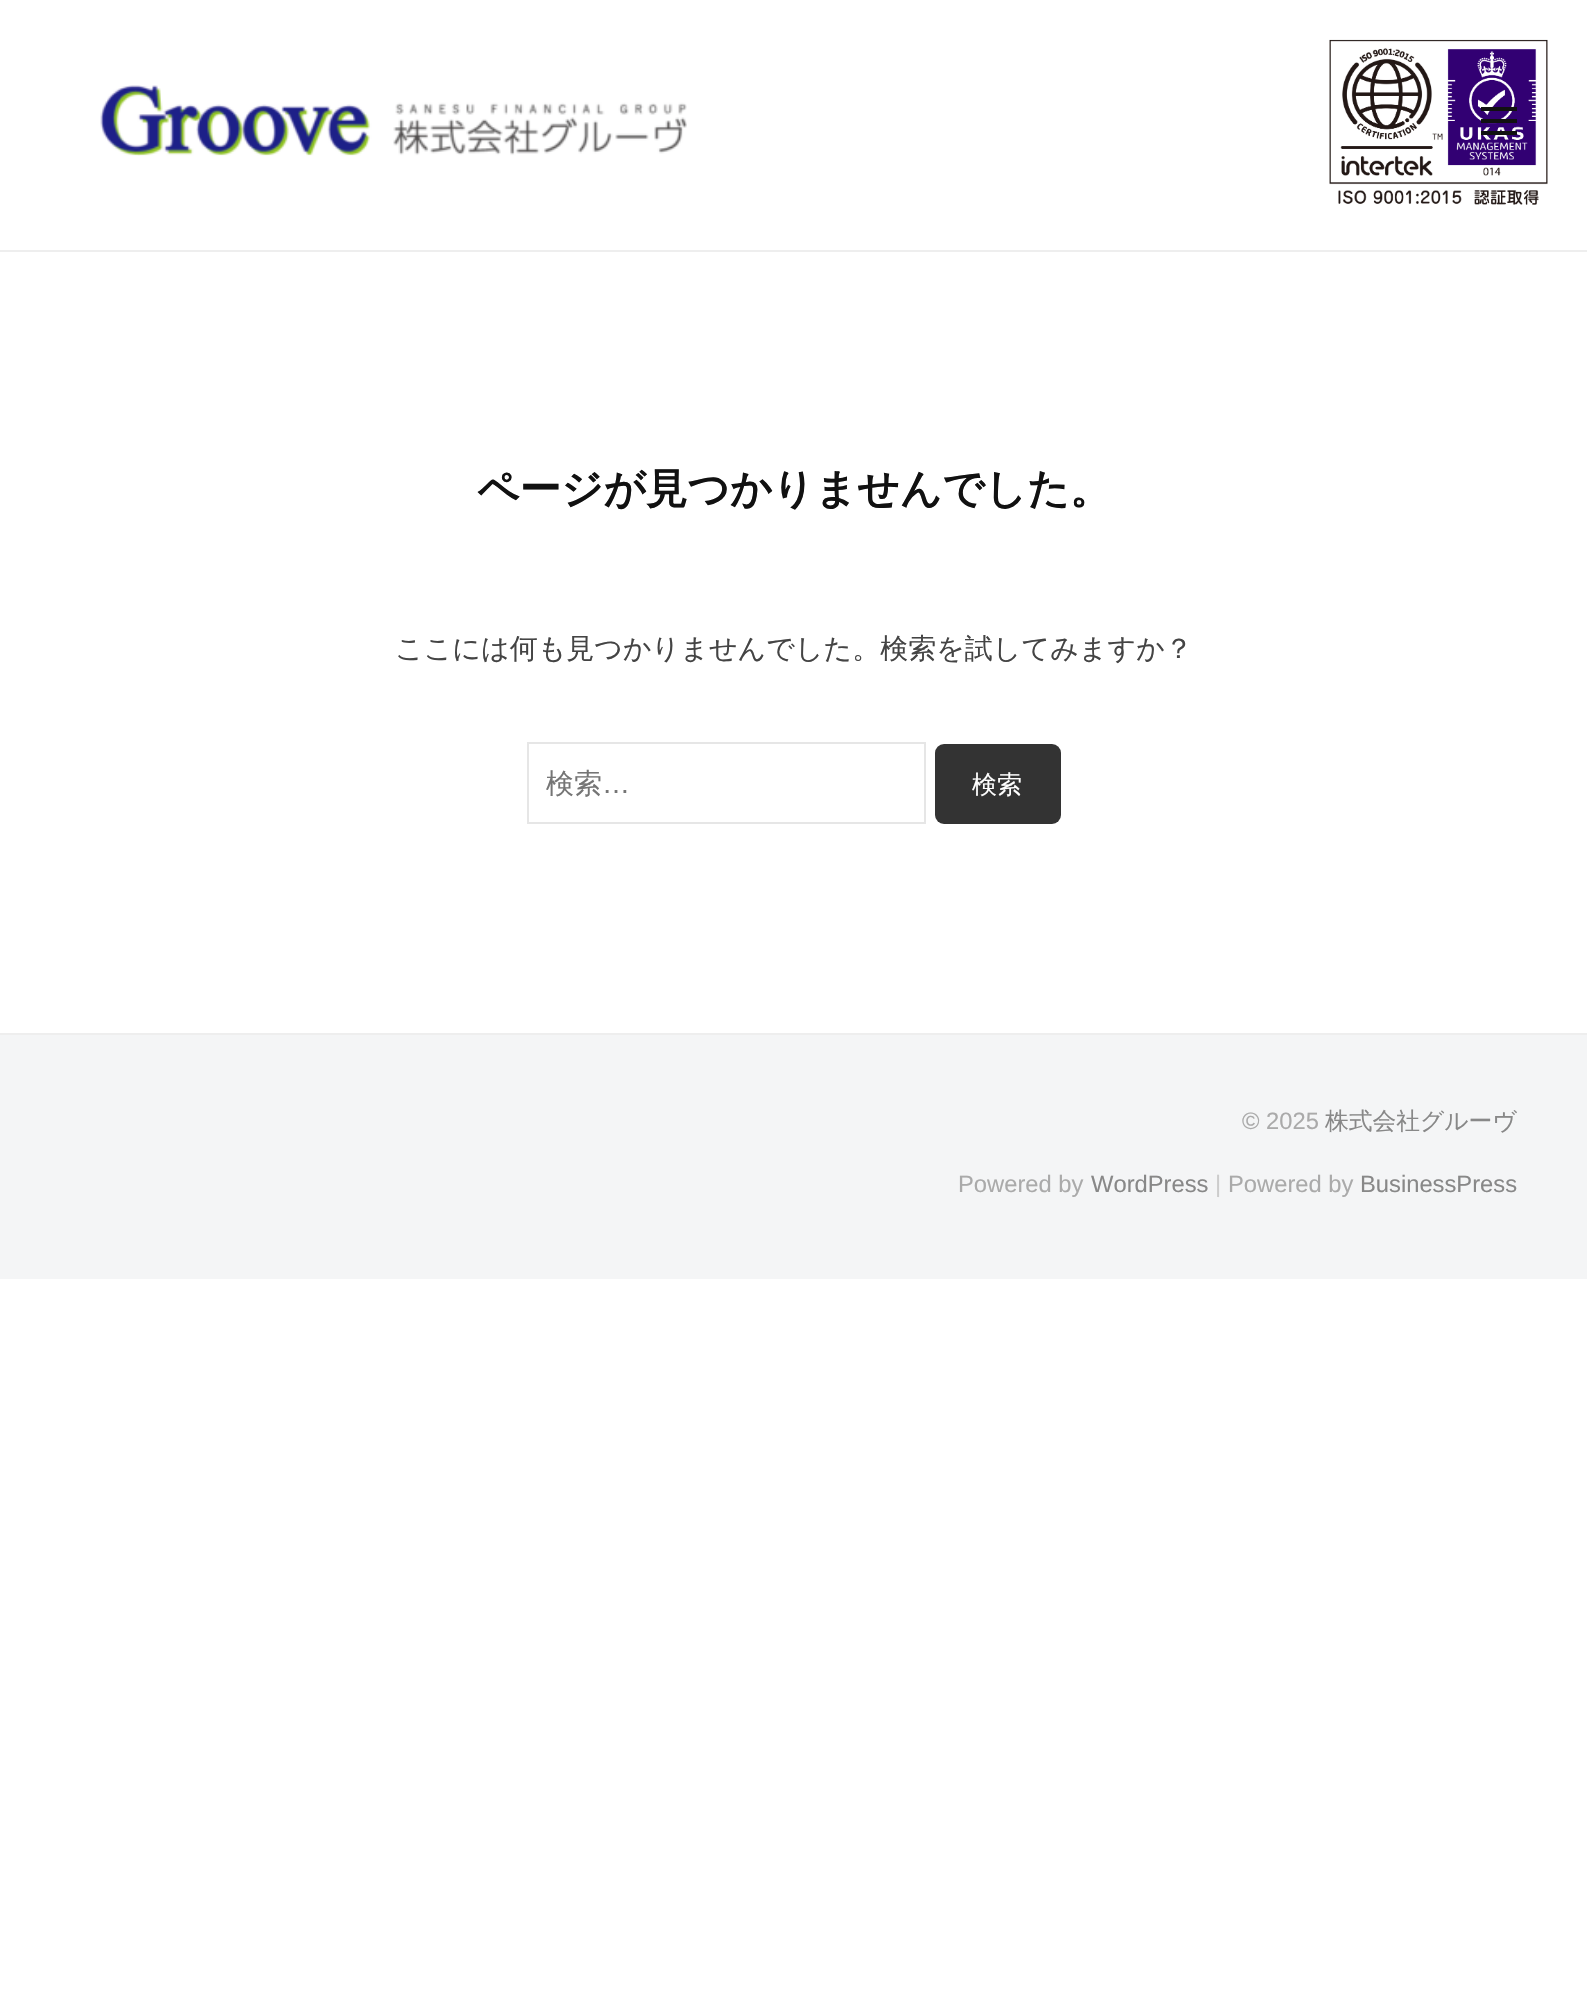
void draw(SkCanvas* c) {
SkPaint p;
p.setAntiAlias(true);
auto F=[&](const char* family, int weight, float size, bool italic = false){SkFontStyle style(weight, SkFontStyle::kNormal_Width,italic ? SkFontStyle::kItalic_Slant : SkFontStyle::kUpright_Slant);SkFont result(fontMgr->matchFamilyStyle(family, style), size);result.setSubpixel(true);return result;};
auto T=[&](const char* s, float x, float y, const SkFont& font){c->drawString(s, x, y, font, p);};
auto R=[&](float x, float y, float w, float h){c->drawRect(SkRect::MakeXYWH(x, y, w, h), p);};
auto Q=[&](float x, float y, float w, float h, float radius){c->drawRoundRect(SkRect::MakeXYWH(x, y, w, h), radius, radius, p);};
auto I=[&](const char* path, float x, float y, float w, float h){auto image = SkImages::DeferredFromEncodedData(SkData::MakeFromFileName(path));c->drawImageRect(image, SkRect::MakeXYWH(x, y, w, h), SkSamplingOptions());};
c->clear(0xffffffff);
I("1.png",1329,39,219,166);
p.setColor(0xffeeeeee);
R(0,250,1587,2);
I("2.png",100,85,587,71);
p.setColor(0xff111111);
R(1481,119,36,4);
R(1481,107,36,4);
R(1481,131,36,4);
auto f1 = F("WenQuanYi Zen Hei",700,41.5);
T("ページが見つかりませんでした。",477,503,f1);
auto f2 = F("WenQuanYi Zen Hei",500,28);
p.setColor(0xff444444);
T("ここには何も見つかりませんでした。検索を試してみますか？",395,658,f2);
p.setStroke(true);
p.setStrokeWidth(2);
p.setColor(0xffe6e6e6);
c->drawRect(SkRect::MakeXYWH(528,743,397,80),p);
p.setStroke(false);
p.setColor(0xff757575);
T("検索",546,793,f2);
auto f3 = F("Liberation Sans",400,28);
T("…",602,793,f3);
p.setColor(0xff333333);
Q(935,744,126,80,9);
auto f4 = F("WenQuanYi Zen Hei",500,25);
p.setColor(0xffffffff);
T("検索",972,793,f4);
p.setColor(0xfff4f5f6);
R(0,1035,1587,244);
p.setColor(0xffeeeeee);
R(0,1033,1587,2);
auto f5 = F("Liberation Sans",400,23.75);
p.setColor(0xffaaaaaa);
T("© 2025",1242,1129,f5);
auto f6 = F("WenQuanYi Zen Hei",500,23.75);
p.setColor(0xff888888);
T("株式会社グルーヴ",1325,1129,f6);
p.setColor(0xffaaaaaa);
T("Powered by",958,1192,f5);
p.setColor(0xff888888);
T("WordPress",1091,1192,f5);
p.setColor(0xffcccccc);
T("|",1215,1192,f5);
p.setColor(0xffaaaaaa);
T("Powered by",1228,1192,f5);
p.setColor(0xff888888);
T("BusinessPress",1360,1192,f5);
}
